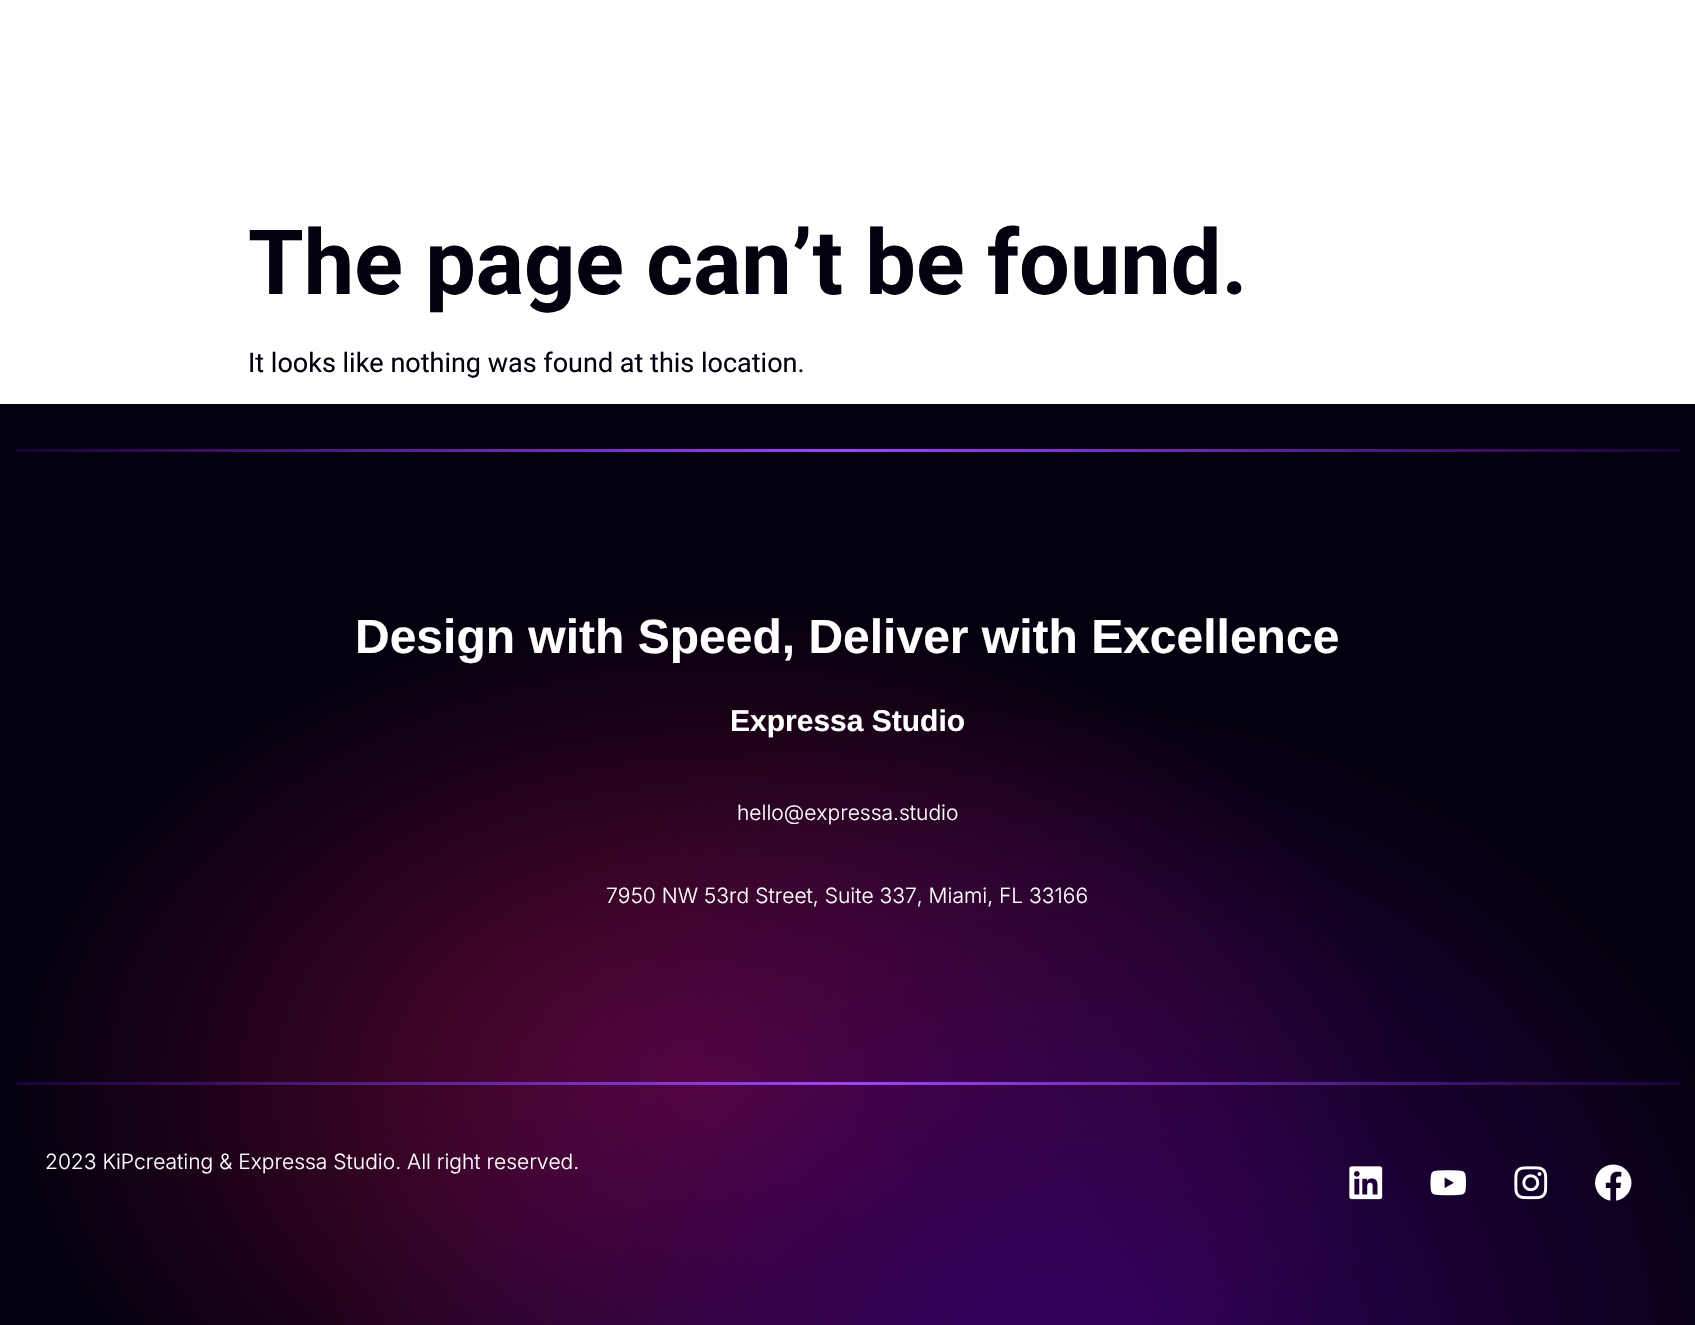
void draw(SkCanvas* c) {
SkPaint p;
p.setAntiAlias(true);
auto F=[&](const char* family, int weight, float size, bool italic = false){SkFontStyle style(weight, SkFontStyle::kNormal_Width,italic ? SkFontStyle::kItalic_Slant : SkFontStyle::kUpright_Slant);SkFont result(fontMgr->matchFamilyStyle(family, style), size);result.setSubpixel(true);return result;};
auto T=[&](const char* s, float x, float y, const SkFont& font){c->drawString(s, x, y, font, p);};
auto R=[&](float x, float y, float w, float h){c->drawRect(SkRect::MakeXYWH(x, y, w, h), p);};
auto I=[&](const char* path, float x, float y, float w, float h){auto image = SkImages::DeferredFromEncodedData(SkData::MakeFromFileName(path));c->drawImageRect(image, SkRect::MakeXYWH(x, y, w, h), SkSamplingOptions());};
c->clear(0xffffffff);
auto f1 = F("Roboto",700,90);
p.setColor(0xff04000e);
T("The page can’t be found.",248,294,f1);
auto f2 = F("Roboto",400,27);
T("It looks like nothing was found at this location.",248,372,f2);
{
const SkColor colors[] = {0xff640732,0xff04000e};
const float stops[] = {0,.5};
SkMatrix m = SkMatrix::Translate(712,1090).preScale(1390,971);
p.setShader(SkGradientShader::MakeRadial({0, 0}, 1, colors, stops, 2, SkTileMode::kClamp, 0, &m));
p.setAlpha(255);
}
R(0,404,1695,921);
{
const SkColor colors[] = {0xff340061,0x00340061};
const float stops[] = {0,.5};
SkMatrix m = SkMatrix::Translate(1051,1375).preScale(1486,1373);
p.setShader(SkGradientShader::MakeRadial({0, 0}, 1, colors, stops, 2, SkTileMode::kClamp, 0, &m));
p.setAlpha(255);
}
R(335,713,1360,612);
{
const SkColor colors[] = {0xff1b0038,0xffa144fe,0xff1b0038};
const float stops[] = {0,.5,1};
const SkPoint ends[] = {{15,450}, {1680,450}};
p.setShader(SkGradientShader::MakeLinear(ends, colors, stops, 3, SkTileMode::kClamp));
p.setAlpha(255);
}
R(15,449,1665,3);
auto f3 = F("Liberation Sans",700,48);
p.setShader(nullptr);
p.setColor(0xffffffff);
T("Design with Speed, Deliver with Excellence",355,653,f3);
auto f4 = F("Liberation Sans",700,30);
T("Expressa Studio",730,731,f4);
auto f5 = F("Inter",300,21);
T("hello@expressa.studio",737,820,f5);
T("7950 NW 53rd Street, Suite 337, Miami, FL 33166",606,903,f5);
{
const SkColor colors[] = {0xff1b0038,0xffa144fe,0xff1b0038};
const float stops[] = {0,.5,1};
const SkPoint ends[] = {{15,1083}, {1680,1083}};
p.setShader(SkGradientShader::MakeLinear(ends, colors, stops, 3, SkTileMode::kClamp));
p.setAlpha(255);
}
R(15,1082,1665,3);
p.setShader(nullptr);
p.setColor(0xffffffff);
T("2023 KiPcreating & Expressa Studio. All right reserved.",45,1169,f5);
I("1.png",1349,1166,34,34);
I("2.png",1430,1170,36,26);
I("3.png",1514,1166,34,34);
I("4.png",1595,1164,37,37);
}
